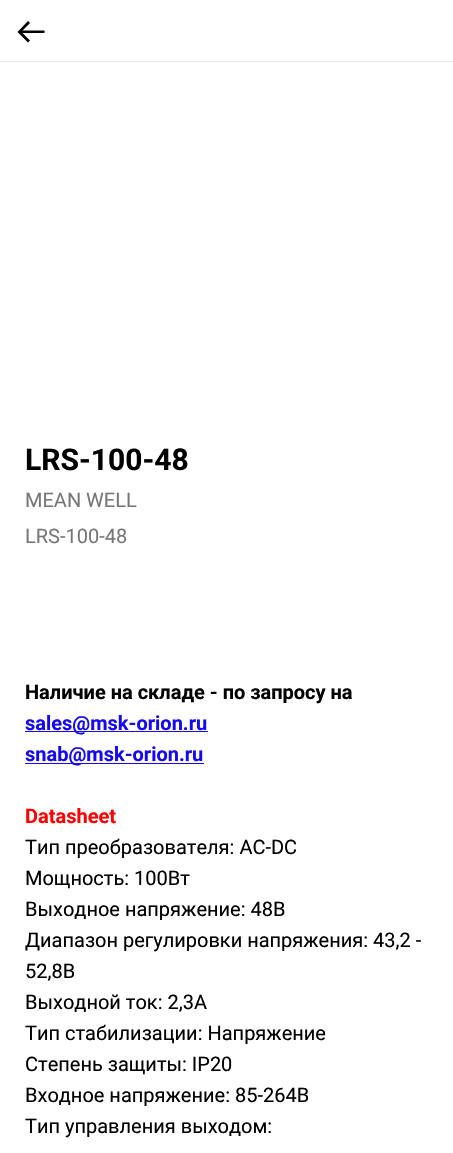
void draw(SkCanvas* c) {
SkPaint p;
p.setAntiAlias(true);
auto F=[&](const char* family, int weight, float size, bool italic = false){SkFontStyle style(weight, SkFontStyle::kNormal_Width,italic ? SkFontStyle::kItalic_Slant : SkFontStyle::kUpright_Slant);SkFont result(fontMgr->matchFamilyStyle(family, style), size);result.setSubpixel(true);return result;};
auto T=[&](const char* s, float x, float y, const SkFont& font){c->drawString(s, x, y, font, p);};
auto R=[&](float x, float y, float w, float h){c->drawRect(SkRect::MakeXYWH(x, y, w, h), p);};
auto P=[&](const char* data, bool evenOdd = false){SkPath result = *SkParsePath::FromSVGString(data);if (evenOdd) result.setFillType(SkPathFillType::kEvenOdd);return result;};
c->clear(0xffffffff);
p.setColor(0xffe6e6e6);
R(0,61,453,1);
p.setColor(0xff000000);
c->drawPath(P("M28 21l2 2l-7.5 7.5h22v2.5h-22l7.5 7.5l-2 2l-10.5-10.5z"),p);
auto f1 = F("Roboto",700,30);
T("LRS-100-48",25,470,f1);
auto f2 = F("Roboto",400,20);
p.setColor(0xff777777);
T("MEAN WELL",25,507,f2);
T("LRS-100-48",25,543,f2);
auto f3 = F("Roboto",700,20);
p.setColor(0xff000000);
T("Наличие на складе - по запросу на",25,699,f3);
p.setColor(0xff1408f5);
R(25,731,183,1);
T("sales@msk-orion.ru",25,730,f3);
R(25,763,179,1);
T("snab@msk-orion.ru",25,761,f3);
p.setColor(0xffff0000);
T("Datasheet",25,823,f3);
p.setColor(0xff000000);
T("Тип преобразователя: AC-DC",25,854,f2);
T("Мощность: 100Вт",25,885,f2);
T("Выходное напряжение: 48В",25,916,f2);
T("Диапазон регулировки напряжения: 43,2 -",25,947,f2);
T("52,8В",25,978,f2);
T("Выходной ток: 2,3А",25,1009,f2);
T("Тип стабилизации: Напряжение",25,1040,f2);
T("Степень защиты: IP20",25,1071,f2);
T("Входное напряжение: 85-264В",25,1102,f2);
T("Тип управления выходом:",25,1133,f2);
}
